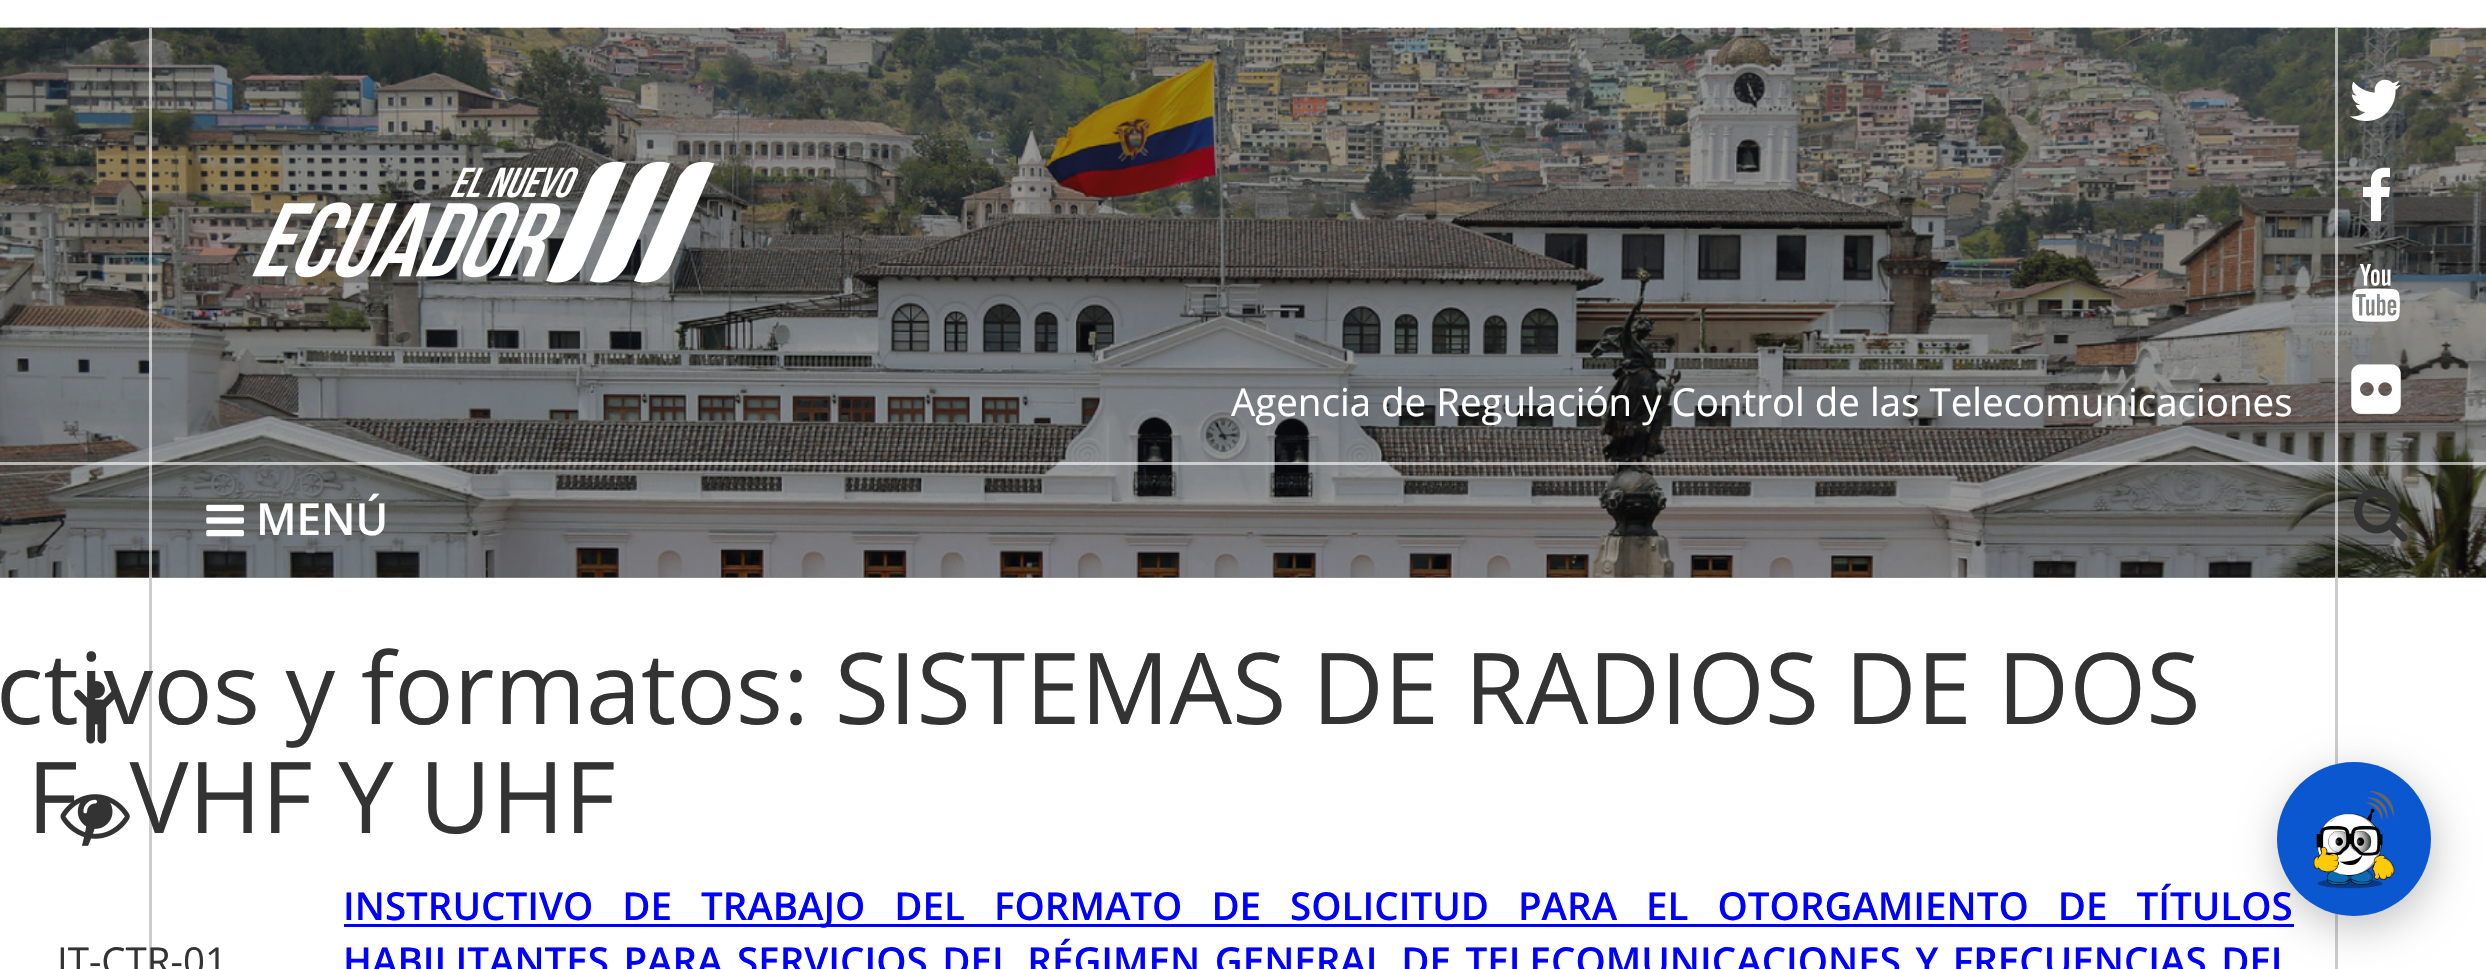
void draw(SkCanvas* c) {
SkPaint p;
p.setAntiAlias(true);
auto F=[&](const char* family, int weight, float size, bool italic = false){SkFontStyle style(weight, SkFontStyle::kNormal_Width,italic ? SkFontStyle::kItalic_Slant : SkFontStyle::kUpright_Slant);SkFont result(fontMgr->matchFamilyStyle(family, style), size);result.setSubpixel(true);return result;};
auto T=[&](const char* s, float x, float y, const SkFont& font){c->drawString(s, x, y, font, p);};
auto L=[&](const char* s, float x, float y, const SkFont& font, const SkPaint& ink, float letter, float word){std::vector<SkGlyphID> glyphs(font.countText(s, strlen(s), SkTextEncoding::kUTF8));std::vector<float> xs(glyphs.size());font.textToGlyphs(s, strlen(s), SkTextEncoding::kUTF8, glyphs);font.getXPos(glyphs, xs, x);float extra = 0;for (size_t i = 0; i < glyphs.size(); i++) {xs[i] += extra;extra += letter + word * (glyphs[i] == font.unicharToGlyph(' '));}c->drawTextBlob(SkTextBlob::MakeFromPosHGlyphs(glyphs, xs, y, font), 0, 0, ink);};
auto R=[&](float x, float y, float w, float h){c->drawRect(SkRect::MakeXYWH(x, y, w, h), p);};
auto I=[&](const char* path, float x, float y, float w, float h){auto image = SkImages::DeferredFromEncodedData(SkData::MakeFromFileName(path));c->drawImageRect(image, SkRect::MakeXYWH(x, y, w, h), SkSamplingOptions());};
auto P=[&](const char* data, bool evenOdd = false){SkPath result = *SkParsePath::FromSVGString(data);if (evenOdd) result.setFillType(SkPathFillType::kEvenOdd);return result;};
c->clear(0xffffffff);
p.setColor(0xff999999);
R(0,577,2486,1);
I("1.png",0,27,2486,551);
p.setColor(0x99ffffff);
R(2335,28,3,550);
R(149,28,3,550);
I("2.png",252,161,463,122);
I("3.png",2350,79,51,42);
p.setColor(0xffffffff);
c->drawPath(P("M2390 168v9c-10 0-9 0-9 10h9l-1 10h-8v24h-10v-24h-8v-10h8v-9c2-10 11-11 19-10z"),p);
I("4.png",2352,264,48,58);
I("5.png",2351,364,50,50);
auto f1 = F("Open Sans",400,38.5);
T("Agencia de Regulación y Control de las Telecomunicaciones",1231,416,f1);
p.setColor(0x99ffffff);
R(0,462,2486,3);
I("6.png",206,504,38,33);
auto f2 = F("Open Sans",600,44);
p.setColor(0xffffffff);
T("MENÚ",256,535,f2);
I("7.png",2354,488,54,54);
p.setColor(0xffcccccc);
R(149,578,3,391);
auto f3 = F("Open Sans",400,99);
p.setColor(0xff333333);
T("ctivos y formatos: SISTEMAS DE RADIOS DE DOS",-4,724,f3);
I("8.png",74,681,41,63);
T("F, VHF Y UHF",27,833,f3);
I("9.png",60,794,70,45);
p.setColor(0xffcccccc);
R(2335,578,3,391);
p.setColor(0xff333333);
T("IT-CTR-01",57,975,f1);
p.setColor(0xff0000ff);
R(344,924,1950,3);
auto f4 = F("Open Sans",600,38.5);
L("INSTRUCTIVO DE TRABAJO DEL FORMATO DE SOLICITUD PARA EL OTORGAMIENTO DE TÍTULOS",343,920,f4,p,0,19);
L("HABILITANTES PARA SERVICIOS DEL RÉGIMEN GENERAL DE TELECOMUNICACIONES Y FRECUENCIAS DEL",343,975,f4,p,0,4.5);
p.setColor(0x3d000000);
p.setMaskFilter(SkMaskFilter::MakeBlur(kNormal_SkBlurStyle, 20.5));
c->drawRoundRect(SkRect::MakeXYWH(2280,773,154,154),77,77,p);
p.setMaskFilter(nullptr);
p.setColor(0xff0b57d0);
c->drawCircle(2354,839,77,p);
I("10.png",2313,790,82,99);
}
